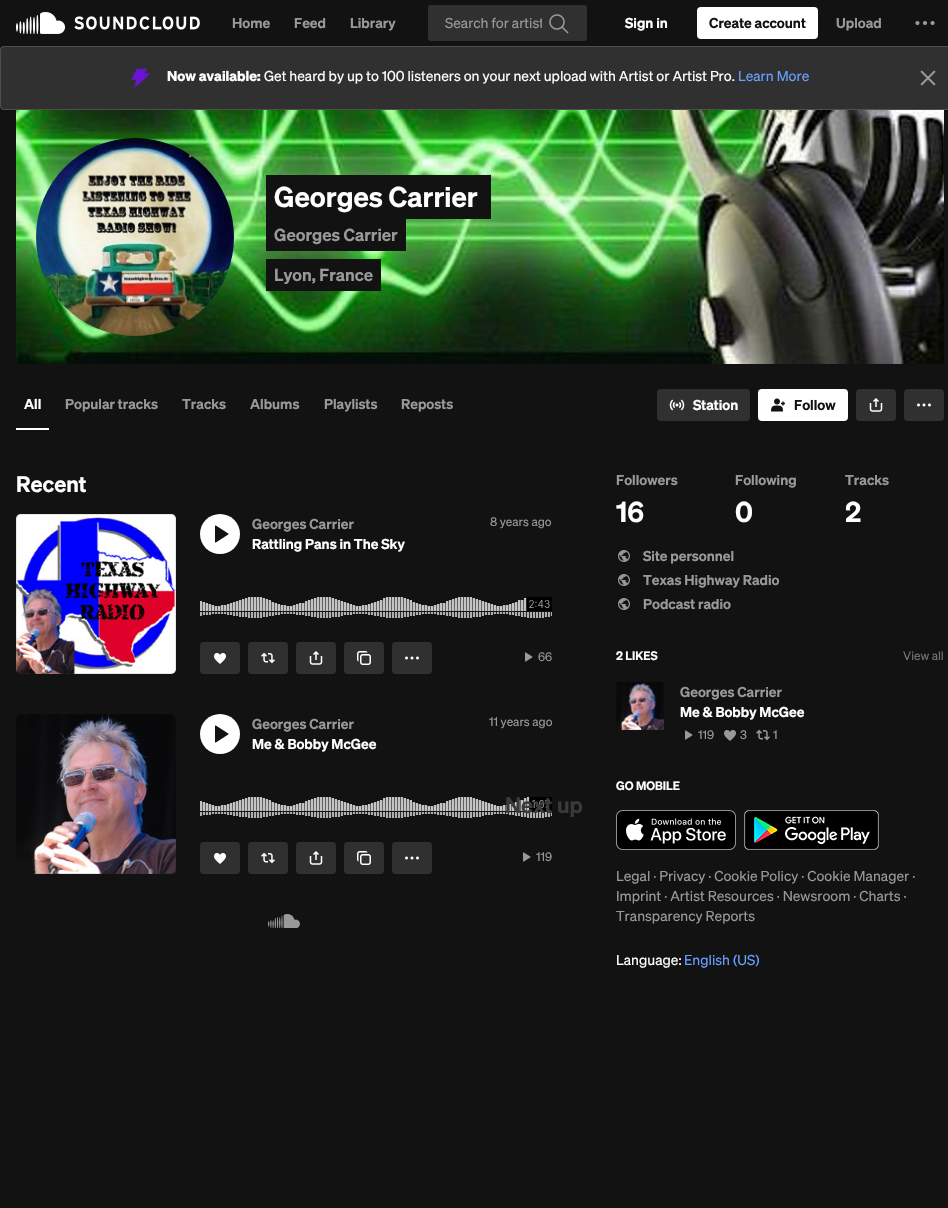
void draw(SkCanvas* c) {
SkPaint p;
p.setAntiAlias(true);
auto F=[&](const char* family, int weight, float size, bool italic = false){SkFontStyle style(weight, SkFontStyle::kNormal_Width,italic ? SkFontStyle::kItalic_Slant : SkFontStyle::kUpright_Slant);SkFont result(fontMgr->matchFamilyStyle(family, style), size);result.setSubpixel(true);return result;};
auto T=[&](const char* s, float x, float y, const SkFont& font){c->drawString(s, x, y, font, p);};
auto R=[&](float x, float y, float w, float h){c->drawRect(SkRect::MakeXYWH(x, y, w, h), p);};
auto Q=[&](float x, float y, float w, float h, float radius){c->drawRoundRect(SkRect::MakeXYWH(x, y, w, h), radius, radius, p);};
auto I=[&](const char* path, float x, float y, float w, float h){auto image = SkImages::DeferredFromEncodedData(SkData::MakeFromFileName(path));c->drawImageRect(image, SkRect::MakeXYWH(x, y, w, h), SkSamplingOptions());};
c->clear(0xff121212);
I("1.png",16,12,184,22);
auto f1 = F("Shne",600,14);
p.setColor(0xff999999);
T("Home",232,28,f1);
T("Feed",294,28,f1);
T("Library",350,28,f1);
p.setColor(0xff303030);
Q(428,5,159,36,3);
c->save();
c->clipRect(SkRect::MakeXYWH(445,12,97,22));
auto f2 = F("Shne",400,14);
p.setColor(0xff999999);
T("Search for artist",445,28,f2);
c->restore();
I("2.png",549,14,20,20);
p.setColor(0xffffffff);
T("Sign in",625,28,f1);
Q(697,7,121,32,4);
p.setColor(0xff121212);
T("Create account",709,28,f1);
p.setColor(0xff999999);
T("Upload",836,28,f1);
I("3.png",915,21,20,4);
p.setColor(0xff303030);
Q(0,46,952,64,4);
p.setStroke(true);
p.setStrokeWidth(1);
p.setColor(0x26ffffff);
c->drawRoundRect(SkRect::MakeXYWH(.5,46.5,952,63),3.5,3.5,p);
I("4.png",131,68,20,20);
auto f3 = F("Shne",700,14);
p.setStroke(false);
p.setColor(0xffffffff);
T("Now available:",167,81,f3);
T("Get heard by up to 100 listeners on your next upload with Artist or Artist Pro.",264,81,f2);
p.setColor(0xff699fff);
T("Learn More",738,81,f2);
I("5.png",920,70,16,16);
I("6.png",16,110,928,254);
I("7.png",36,138,198,198);
p.setColor(0xff121212);
R(266,175,225,44);
auto f4 = F("Shne",600,28);
p.setColor(0xffffffff);
T("Georges Carrier",274,207,f4);
p.setColor(0xff121212);
R(266,219,140,32);
auto f5 = F("Shne",600,17);
p.setColor(0xff999999);
T("Georges Carrier",274,241,f5);
p.setColor(0xff121212);
R(266,259,115,32);
p.setColor(0xff999999);
T("Lyon, France",274,281,f5);
p.setColor(0xffffffff);
R(16,428,33,2);
T("All",24,409,f1);
p.setColor(0xff999999);
T("Popular tracks",65,409,f1);
T("Tracks",182,409,f1);
T("Albums",250,409,f1);
T("Playlists",324,409,f1);
T("Reposts",401,409,f1);
p.setColor(0xff303030);
Q(657,389,93,32,4);
I("8.png",669,399,16,12);
p.setColor(0xffffffff);
T("Station",693,410,f1);
Q(758,389,90,32,4);
I("9.png",771,398,14,14);
p.setColor(0xff121212);
T("Follow",794,410,f1);
p.setColor(0xff303030);
Q(856,389,40,32,4);
I("10.png",869,398,14,14);
Q(904,389,40,32,4);
I("11.png",917,403,14,4);
auto f6 = F("Shne",600,22);
p.setColor(0xffffffff);
T("Recent",16,492,f6);
I("12.png",16,514,160,160);
p.setStroke(true);
p.setColor(0x1a121212);
c->drawRoundRect(SkRect::MakeXYWH(16.5,514.5,159,159),4.5,4.5,p);
p.setStroke(false);
p.setColor(0xffffffff);
c->drawCircle(220,534,20,p);
I("13.png",215,525,14,18);
p.setColor(0xff999999);
T("Georges Carrier",252,529,f1);
p.setColor(0xffffffff);
T("Rattling Pans in The Sky",252,549,f1);
auto f7 = F("Shne",400,12);
p.setColor(0xff999999);
T("8 years ago",490,526,f7);
I("14.png",200,597,352,21);
I("15.png",526,597,26,14);
p.setColor(0xff303030);
Q(200,642,40,32,4);
I("16.png",214,653,12,11);
Q(248,642,40,32,4);
I("17.png",261,652,14,12);
Q(296,642,40,32,4);
I("10.png",309,651,14,14);
Q(344,642,40,32,4);
I("18.png",357,651,14,14);
Q(392,642,40,32,4);
I("11.png",405,656,14,4);
I("19.png",525,652,8,10);
p.setColor(0xff999999);
T("66",538,661,f7);
I("20.png",16,714,160,160);
p.setStroke(true);
p.setColor(0x1a121212);
c->drawRoundRect(SkRect::MakeXYWH(16.5,714.5,159,159),4.5,4.5,p);
p.setStroke(false);
p.setColor(0xffffffff);
c->drawCircle(220,734,20,p);
I("13.png",215,725,14,18);
p.setColor(0xff999999);
T("Georges Carrier",252,729,f1);
p.setColor(0xffffffff);
T("Me & Bobby McGee",252,749,f1);
p.setColor(0xff999999);
T("11 years ago",489,726,f7);
I("14.png",200,797,352,21);
I("21.png",529,797,23,14);
p.setColor(0xff303030);
Q(200,842,40,32,4);
I("16.png",214,853,12,11);
Q(248,842,40,32,4);
I("17.png",261,852,14,12);
Q(296,842,40,32,4);
I("10.png",309,851,14,14);
Q(344,842,40,32,4);
I("18.png",357,851,14,14);
Q(392,842,40,32,4);
I("11.png",405,856,14,4);
I("19.png",523,852,8,10);
p.setColor(0xff999999);
T("119",536,861,f7);
I("22.png",268,914,32,14);
T("Followers",616,485,f1);
p.setColor(0xffffffff);
T("16",616,522,f4);
p.setColor(0xff999999);
T("Following",735,485,f1);
p.setColor(0xffffffff);
T("0",735,522,f4);
p.setColor(0xff999999);
T("Tracks",845,485,f1);
p.setColor(0xffffffff);
T("2",845,522,f4);
I("23.png",618,550,12,12);
p.setColor(0xff999999);
T("Site personnel",643,561,f1);
I("23.png",618,574,12,12);
T("Texas Highway Radio",643,585,f1);
I("23.png",618,598,12,12);
T("Podcast radio",643,609,f1);
auto f8 = F("Shne",600,12);
p.setColor(0xffffffff);
T("2 LIKES",616,660,f8);
p.setColor(0xff757575);
T("View all",903,660,f7);
I("24.png",616,682,48,48);
p.setStroke(true);
p.setColor(0x1a121212);
c->drawRect(SkRect::MakeXYWH(616.5,682.5,47,47),p);
p.setStroke(false);
p.setColor(0xff999999);
T("Georges Carrier",680,697,f1);
p.setColor(0xffffffff);
T("Me & Bobby McGee",680,717,f1);
I("19.png",685,730,8,10);
p.setColor(0xff999999);
T("119",698,739,f7);
I("25.png",724,730,12,11);
T("3",740,739,f7);
I("26.png",756,729,14,12);
T("1",773,739,f7);
p.setColor(0xffffffff);
T("GO MOBILE",616,790,f8);
I("27.png",616,810,120,40);
I("28.png",744,810,135,40);
p.setColor(0xff999999);
T("Legal · Privacy · Cookie Policy · Cookie Manager ·",616,881,f2);
T("Imprint · Artist Resources · Newsroom · Charts ·",616,901,f2);
T("Transparency Reports",616,921,f2);
p.setColor(0xffffffff);
T("Language:",616,965,f2);
p.setColor(0xff699fff);
T("English (US)",684,965,f2);
p.setColor(0xff3a3a3a);
T("Next up",505,813,f6);
}
